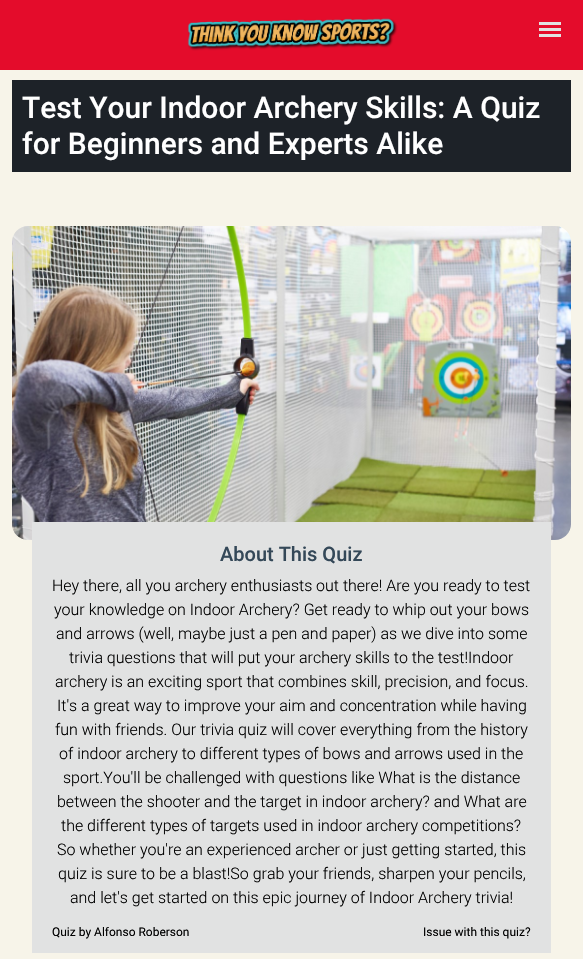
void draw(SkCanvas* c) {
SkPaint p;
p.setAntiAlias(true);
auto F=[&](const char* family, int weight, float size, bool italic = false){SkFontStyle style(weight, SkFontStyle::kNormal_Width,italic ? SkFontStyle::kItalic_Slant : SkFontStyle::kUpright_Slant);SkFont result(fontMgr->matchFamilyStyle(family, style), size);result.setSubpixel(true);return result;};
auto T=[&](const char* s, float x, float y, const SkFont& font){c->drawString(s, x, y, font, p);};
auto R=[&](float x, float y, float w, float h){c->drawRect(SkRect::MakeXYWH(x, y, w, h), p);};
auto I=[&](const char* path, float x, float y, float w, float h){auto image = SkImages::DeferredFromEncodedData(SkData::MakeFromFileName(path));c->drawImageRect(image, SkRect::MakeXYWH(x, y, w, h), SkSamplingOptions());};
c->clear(0xfff7f4e9);
p.setColor(0xffe40c2b);
R(0,0,583,70);
I("1.png",187,18,211,33);
p.setColor(0xffe1e2e2);
R(539,22,22,3);
R(539,28,22,3);
R(539,34,22,3);
p.setColor(0xff1d2228);
R(12,80,559,92);
auto f1 = F("Roboto",500,30);
p.setColor(0xffffffff);
T("Test Your Indoor Archery Skills: A Quiz",22,118,f1);
T("for Beginners and Experts Alike",22,154,f1);
I("2.png",12,226,559,314);
p.setColor(0xffe1e2e2);
R(32,522,519,431);
auto f2 = F("Roboto",500,20);
p.setColor(0xff344858);
T("About This Quiz",220,561,f2);
auto f3 = F("Roboto",300,16);
p.setColor(0xff000000);
T("Hey there, all you archery enthusiasts out there! Are you ready to test",52,591,f3);
T("your knowledge on Indoor Archery? Get ready to whip out your bows",54,615,f3);
T("and arrows (well, maybe just a pen and paper) as we dive into some",56,639,f3);
T("trivia questions that will put your archery skills to the test!Indoor",69,663,f3);
T("archery is an exciting sport that combines skill, precision, and focus.",55,687,f3);
T("It's a great way to improve your aim and concentration while having",57,711,f3);
T("fun with friends. Our trivia quiz will cover everything from the history",55,735,f3);
T("of indoor archery to different types of bows and arrows used in the",59,759,f3);
T("sport.You'll be challenged with questions like What is the distance",63,783,f3);
T("between the shooter and the target in indoor archery? and What are",57,807,f3);
T("the different types of targets used in indoor archery competitions?",61,831,f3);
T("So whether you're an experienced archer or just getting started, this",57,855,f3);
T("quiz is sure to be a blast!So grab your friends, sharpen your pencils,",58,879,f3);
T("and let's get started on this epic journey of Indoor Archery trivia!",70,903,f3);
auto f4 = F("Roboto",400,12);
T("Quiz by Alfonso Roberson",52,936,f4);
T("Issue with this quiz?",423,936,f4);
}
